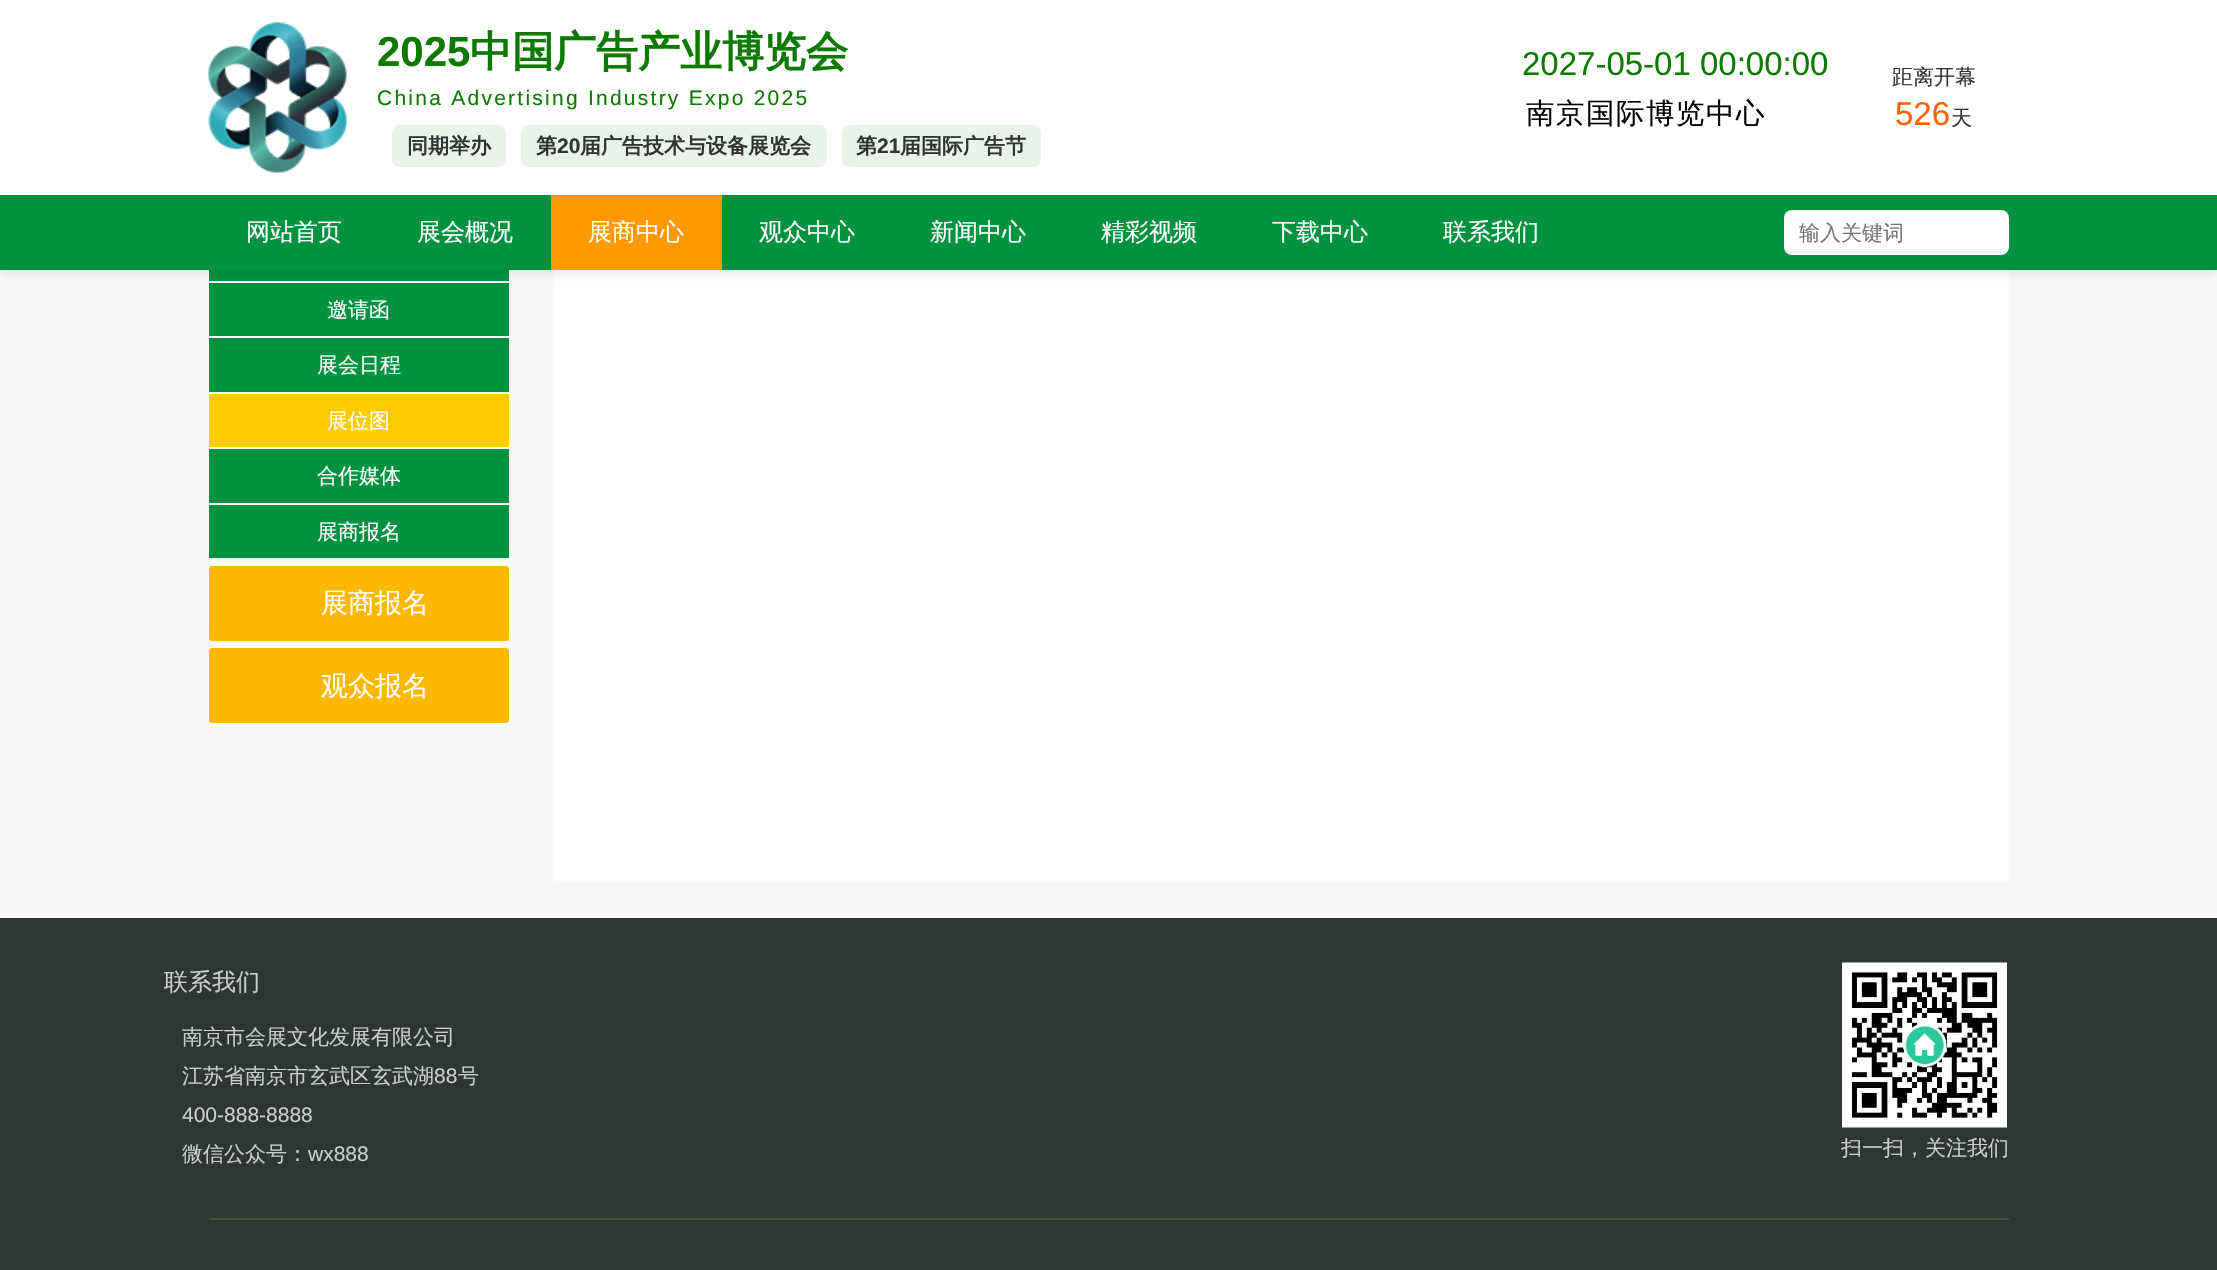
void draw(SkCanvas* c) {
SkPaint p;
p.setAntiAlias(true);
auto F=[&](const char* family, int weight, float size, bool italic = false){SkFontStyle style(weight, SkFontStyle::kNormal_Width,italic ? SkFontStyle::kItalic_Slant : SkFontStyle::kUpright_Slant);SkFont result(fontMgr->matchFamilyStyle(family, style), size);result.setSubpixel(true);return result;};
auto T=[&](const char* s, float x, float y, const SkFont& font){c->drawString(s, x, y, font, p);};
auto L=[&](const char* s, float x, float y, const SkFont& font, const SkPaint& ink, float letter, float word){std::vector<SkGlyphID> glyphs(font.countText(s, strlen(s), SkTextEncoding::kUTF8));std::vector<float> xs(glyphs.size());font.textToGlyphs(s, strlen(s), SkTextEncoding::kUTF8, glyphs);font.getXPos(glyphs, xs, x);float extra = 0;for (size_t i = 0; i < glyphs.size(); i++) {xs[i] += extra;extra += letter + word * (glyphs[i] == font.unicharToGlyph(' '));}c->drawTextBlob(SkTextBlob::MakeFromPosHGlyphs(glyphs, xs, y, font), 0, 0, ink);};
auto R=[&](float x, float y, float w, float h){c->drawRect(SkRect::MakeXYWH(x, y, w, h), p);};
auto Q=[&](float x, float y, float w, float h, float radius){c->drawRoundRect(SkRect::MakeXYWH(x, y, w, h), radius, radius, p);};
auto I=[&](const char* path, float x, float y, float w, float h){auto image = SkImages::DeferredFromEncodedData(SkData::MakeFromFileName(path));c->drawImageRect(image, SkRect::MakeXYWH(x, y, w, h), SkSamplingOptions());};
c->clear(0xfff9f9f9);
p.setColor(0xff00923f);
R(209,270,300,11);
R(209,283,300,53);
p.setColor(0xffffffff);
R(209,281,300,2);
R(554,270,1455,611);
p.setColor(0x12000000);
p.setMaskFilter(SkMaskFilter::MakeBlur(kNormal_SkBlurStyle, 4.5));
c->drawRect(SkRect::MakeXYWH(0,5,2217,270),p);
p.setMaskFilter(nullptr);
p.setColor(0xffffffff);
R(0,0,2217,195);
I("1.png",208,22,139,151);
auto f1 = F("Liberation Sans",700,42);
p.setColor(0xff0d7900);
T("2025",377,66,f1);
auto f2 = F("WenQuanYi Zen Hei",700,42);
T("中国广告产业博览会",470,66,f2);
auto f3 = F("Liberation Sans",400,21);
L("China Advertising Industry Expo 2025",377,105,f3,p,2.25,0);
p.setColor(0xffe9f3ea);
Q(392,125,114,42,8);
auto f4 = F("WenQuanYi Zen Hei",700,21);
p.setColor(0xff333333);
T("同期举办",407,153,f4);
p.setColor(0xffe9f3ea);
Q(521,125,306,42,8);
p.setColor(0xff333333);
T("第",536,153,f4);
auto f5 = F("Liberation Sans",700,21);
T("20",557,153,f5);
T("届广告技术与设备展览会",580,153,f4);
p.setColor(0xffe9f3ea);
Q(842,125,199,42,8);
p.setColor(0xff333333);
T("第",856,153,f4);
T("21",877,153,f5);
T("届国际广告节",900,153,f4);
auto f6 = F("Liberation Sans",400,33);
p.setColor(0xff0d7900);
T("2027-05-01 00:00:00",1522,75,f6);
auto f7 = F("WenQuanYi Zen Hei",500,28.5);
p.setColor(0xff000000);
L("南京国际博览中心",1526,123,f7,p,1.5,0);
auto f8 = F("WenQuanYi Zen Hei",500,21);
p.setColor(0xff333333);
T("距离开幕",1892,84,f8);
p.setColor(0xffff6000);
T("526",1895,125,f6);
p.setColor(0xff333333);
T("天",1951,125,f8);
p.setColor(0xff00923f);
R(0,195,2217,75);
auto f9 = F("WenQuanYi Zen Hei",500,24);
p.setColor(0xffffffff);
T("网站首页",246,240,f9);
T("展会概况",417,240,f9);
p.setColor(0xffff9900);
R(551,195,171,75);
p.setColor(0xffffffff);
T("展商中心",588,240,f9);
T("观众中心",759,240,f9);
T("新闻中心",930,240,f9);
T("精彩视频",1101,240,f9);
T("下载中心",1272,240,f9);
T("联系我们",1443,240,f9);
Q(1784,210,225,45,8);
c->save();
c->clipRect(SkRect::MakeXYWH(1799,221,195,27));
p.setColor(0xff757575);
T("输入关键词",1799,240,f8);
c->restore();
p.setColor(0xffffffff);
T("邀请函",327,317,f8);
p.setColor(0xff00923f);
R(209,338,300,54);
p.setColor(0xffffffff);
R(209,336,300,2);
T("展会日程",317,372,f8);
p.setColor(0xffffcc00);
R(209,394,300,53);
p.setColor(0xffffffff);
R(209,392,300,2);
T("展位图",327,428,f8);
p.setColor(0xff00923f);
R(209,449,300,54);
p.setColor(0xffffffff);
R(209,447,300,2);
T("合作媒体",317,483,f8);
p.setColor(0xff00923f);
R(209,505,300,53);
p.setColor(0xffffffff);
R(209,503,300,2);
T("展商报名",317,539,f8);
p.setColor(0xffffb800);
Q(209,566,300,75,3);
auto f10 = F("WenQuanYi Zen Hei",500,27);
p.setColor(0xffffffff);
T("展商报名",321,612,f10);
p.setColor(0xffffb800);
Q(209,648,300,75,3);
p.setColor(0xffffffff);
T("观众报名",321,695,f10);
p.setColor(0xff2d3631);
R(0,918,2217,352);
p.setColor(0xffcccccc);
T("联系我们",164,990,f9);
T("南京市会展文化发展有限公司",182,1044,f8);
T("江苏省南京市玄武区玄武湖",182,1083,f8);
T("88",434,1083,f3);
T("号",458,1083,f8);
T("400-888-8888",182,1122,f3);
T("微信公众号：",182,1161,f8);
T("wx888",308,1161,f3);
I("2.png",1842,962,165,166);
T("扫一扫，关注我们",1841,1155,f8);
p.setColor(0xff40554a);
R(209,1218,1800,2);
}
